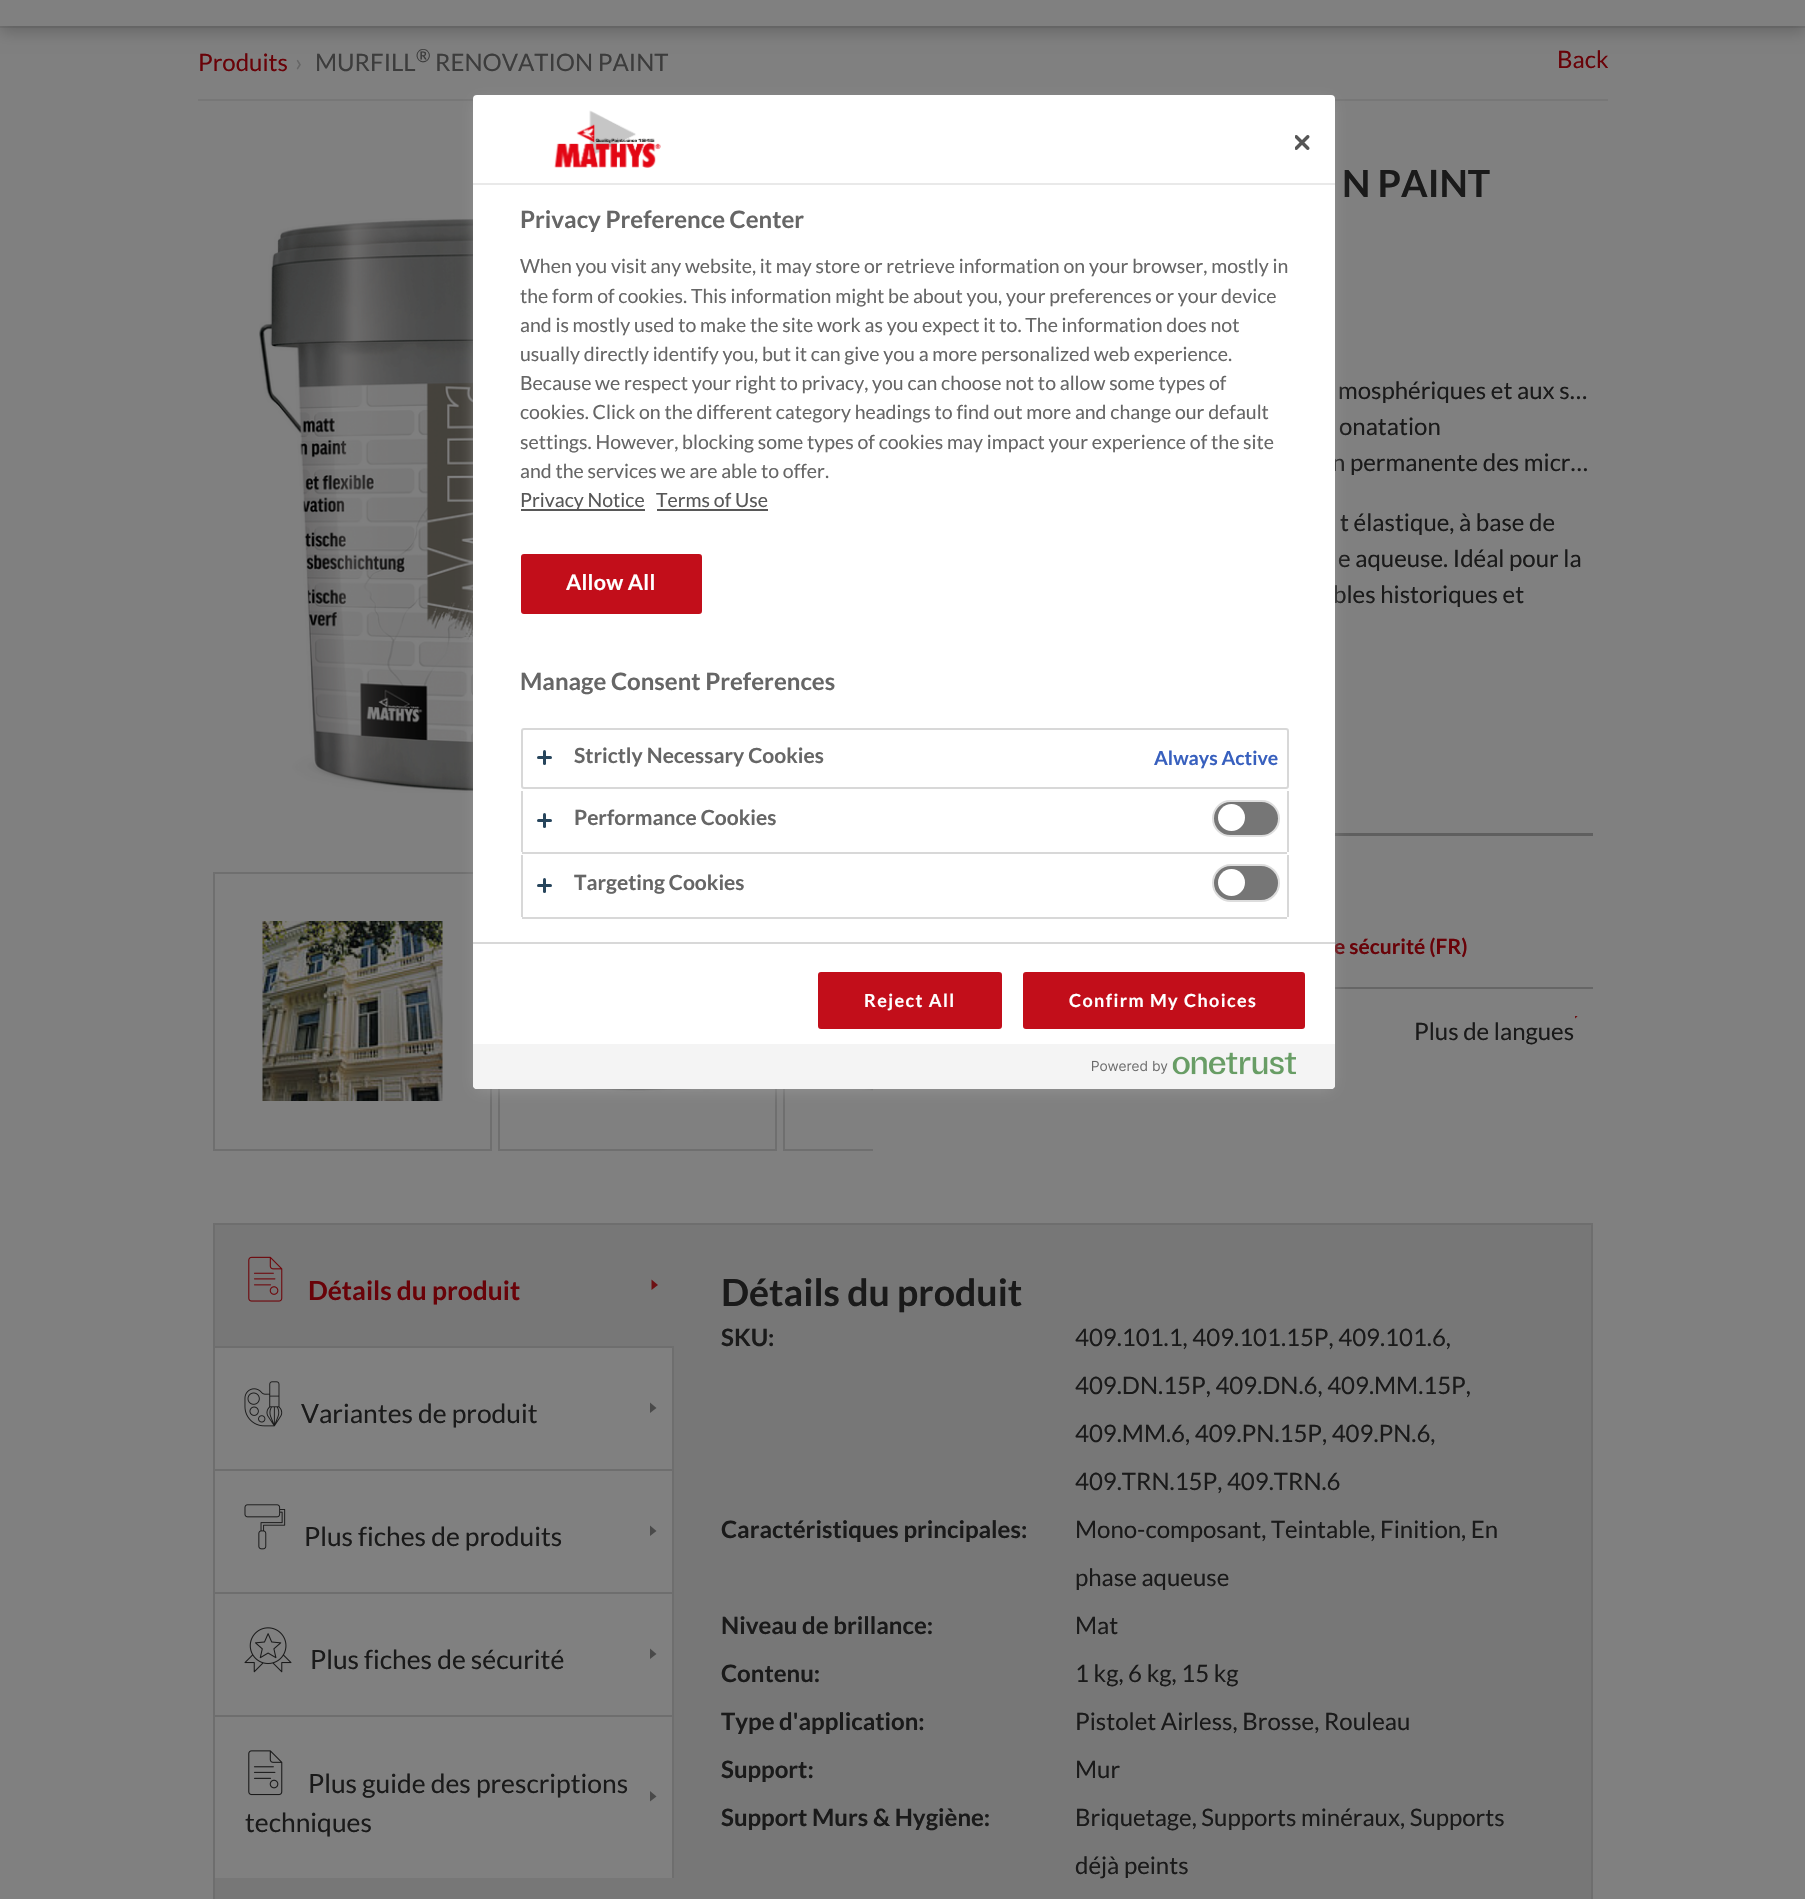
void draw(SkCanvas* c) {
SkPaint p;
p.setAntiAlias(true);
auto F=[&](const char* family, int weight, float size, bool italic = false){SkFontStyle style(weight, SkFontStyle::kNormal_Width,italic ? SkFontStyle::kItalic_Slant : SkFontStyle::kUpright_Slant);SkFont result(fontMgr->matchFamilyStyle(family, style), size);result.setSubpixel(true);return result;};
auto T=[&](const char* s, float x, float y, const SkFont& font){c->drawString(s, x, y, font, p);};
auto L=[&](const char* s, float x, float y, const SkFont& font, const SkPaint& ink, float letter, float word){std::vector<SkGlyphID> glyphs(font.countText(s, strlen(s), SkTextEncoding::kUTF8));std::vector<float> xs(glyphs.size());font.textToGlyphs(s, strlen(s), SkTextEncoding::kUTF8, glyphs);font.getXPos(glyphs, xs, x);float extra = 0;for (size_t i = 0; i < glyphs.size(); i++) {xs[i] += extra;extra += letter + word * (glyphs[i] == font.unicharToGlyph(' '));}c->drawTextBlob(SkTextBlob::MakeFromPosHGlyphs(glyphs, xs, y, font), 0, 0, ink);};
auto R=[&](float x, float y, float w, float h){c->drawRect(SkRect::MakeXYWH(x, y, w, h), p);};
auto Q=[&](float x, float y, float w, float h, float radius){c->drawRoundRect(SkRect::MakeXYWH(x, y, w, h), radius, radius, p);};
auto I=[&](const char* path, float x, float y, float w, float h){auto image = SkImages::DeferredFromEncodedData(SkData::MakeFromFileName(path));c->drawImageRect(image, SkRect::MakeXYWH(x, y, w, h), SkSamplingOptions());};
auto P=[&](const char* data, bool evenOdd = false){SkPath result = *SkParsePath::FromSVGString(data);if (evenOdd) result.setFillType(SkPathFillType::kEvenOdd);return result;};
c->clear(0xff808080);
p.setColor(0xff777777);
R(0,26,1805,2);
c->save();
c->clipPath(P("M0 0h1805v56h-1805zm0-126h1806v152h-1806z",true),true);
p.setColor(0x33000000);
p.setMaskFilter(SkMaskFilter::MakeBlur(kNormal_SkBlurStyle, 7.5));
c->drawRect(SkRect::MakeXYWH(0,-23,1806,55),p);
p.setMaskFilter(nullptr);
c->restore();
p.setColor(0xff777777);
R(198,99,1410,2);
auto f1 = F("Lato",400,24);
p.setColor(0xff690208);
T("Produits",198,71,f1);
p.setColor(0xff666666);
T("›",295,71,f1);
p.setColor(0xff3c3c3c);
T("MURFILL",315,71,f1);
auto f2 = F("Lato",400,18);
T("®",416,62,f2);
T("RENOVATION PAINT",435,71,f1);
p.setColor(0xff690208);
T("Back",1557,68,f1);
I("1.png",259,218,214,575);
p.setStroke(true);
p.setStrokeWidth(2);
p.setColor(0xff6f6f6f);
c->drawRect(SkRect::MakeXYWH(214,873,277,277),p);
I("2.png",262,921,181,180);
c->drawRect(SkRect::MakeXYWH(499,873,277,277),p);
I("3.png",559,1089,157,4);
c->save();
c->clipRect(SkRect::MakeXYWH(213,872,660,279));
c->drawRect(SkRect::MakeXYWH(784,873,277,277),p);
c->restore();
I("4.png",844,1089,29,2);
auto f3 = F("Lato",700,37.5);
p.setStroke(false);
p.setColor(0xff1a1a1a);
T("N PAINT",1342,197,f3);
T("mosphériques et aux s…",1338,399,f1);
T("onatation",1339,435,f1);
T("n permanente des micr…",1332,471,f1);
T("t élastique, à base de",1340,531,f1);
T("e aqueuse. Idéal pour la",1338,567,f1);
T("bles historiques et",1333,603,f1);
p.setColor(0xff5f5f5f);
R(1335,833,258,3);
auto f4 = F("Lato",700,21);
p.setColor(0xff690208);
T("e sécurité (FR)",1334,954,f4);
p.setColor(0xff666666);
R(1335,987,258,2);
c->save();
c->clipRect(SkRect::MakeXYWH(1575,1016,3,6));
p.setColor(0xff6d1013);
c->drawPath(P("M1571 1011l6.5 5.5l-6.5 5z"),p);
c->restore();
p.setColor(0xff1a1a1a);
T("Plus de langues",1414,1040,f1);
p.setColor(0xff777777);
c->drawRect(SkRect::MakeXYWH(214,1224,1378,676),p);
p.setStroke(true);
p.setColor(0xff6e6e6e);
c->drawRect(SkRect::MakeXYWH(214,1224,1378,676),p);
p.setStroke(false);
p.setColor(0xff6d1013);
c->drawPath(P("M651.5 1279.5l6.5 5.5l-6.5 5z"),p);
I("5.png",248,1256,35,46);
auto f5 = F("Lato",700,26.4);
p.setColor(0xff690208);
T("Détails du produit",308,1300,f5);
p.setColor(0xff808080);
R(215,1348,457,121);
p.setColor(0xff4a4a4a);
c->drawPath(P("M650 1402.5l6.5 5.5l-6.5 5z"),p);
p.setColor(0xff6e6e6e);
R(215,1346,459,2);
R(672,1346,2,123);
I("6.png",244,1381,39,46);
auto f6 = F("Lato",400,26.4);
p.setColor(0xff1a1a1a);
T("Variantes de produit",301,1423,f6);
p.setColor(0xff808080);
R(215,1471,457,121);
p.setColor(0xff4a4a4a);
c->drawPath(P("M650 1525.5l6.5 5.5l-6.5 5z"),p);
p.setColor(0xff6e6e6e);
R(215,1469,459,2);
R(672,1469,2,123);
I("7.png",244,1504,42,46);
p.setColor(0xff1a1a1a);
T("Plus fiches de produits",304,1546,f6);
p.setColor(0xff808080);
R(215,1594,457,121);
p.setColor(0xff4a4a4a);
c->drawPath(P("M650 1648.5l6.5 5.5l-6.5 5z"),p);
p.setColor(0xff6e6e6e);
R(215,1592,459,2);
R(672,1592,2,123);
I("8.png",244,1627,48,46);
p.setColor(0xff1a1a1a);
T("Plus fiches de sécurité",310,1669,f6);
p.setColor(0xff808080);
R(215,1717,457,161);
p.setColor(0xff4a4a4a);
c->drawPath(P("M650 1791l6.5 5.5l-6.5 5z"),p);
p.setColor(0xff6e6e6e);
R(215,1715,459,2);
R(672,1715,2,163);
I("9.png",248,1750,35,46);
p.setColor(0xff1a1a1a);
T("Plus guide des prescriptions",308,1793,f6);
T("techniques",245,1832,f6);
T("Détails du produit",721,1306,f3);
auto f7 = F("Lato",700,24);
T("SKU:",721,1346,f7);
T("409.101.1, 409.101.15P, 409.101.6,",1075,1346,f1);
T("409.DN.15P, 409.DN.6, 409.MM.15P,",1075,1394,f1);
T("409.MM.6, 409.PN.15P, 409.PN.6,",1075,1442,f1);
T("409.TRN.15P, 409.TRN.6",1075,1490,f1);
T("Caractéristiques principales:",721,1538,f7);
T("Mono-composant, Teintable, Finition, En",1075,1538,f1);
T("phase aqueuse",1075,1586,f1);
T("Niveau de brillance:",721,1634,f7);
T("Mat",1075,1634,f1);
T("Contenu:",721,1682,f7);
T("1 kg, 6 kg, 15 kg",1075,1682,f1);
T("Type d'application:",721,1730,f7);
T("Pistolet Airless, Brosse, Rouleau",1075,1730,f1);
T("Support:",721,1778,f7);
T("Mur",1075,1778,f1);
T("Support Murs & Hygiène:",721,1826,f7);
T("Briquetage, Supports minéraux, Supports",1075,1826,f1);
T("déjà peints",1075,1874,f1);
p.setColor(0xff999999);
p.setMaskFilter(SkMaskFilter::MakeBlur(kNormal_SkBlurStyle, 7.5));
c->drawRect(SkRect::MakeXYWH(477,102,854,986),p);
p.setMaskFilter(nullptr);
p.setColor(0xffffffff);
Q(473,95,862,994,4);
p.setColor(0xffe9e9e9);
R(473,183,862,2);
I("10.png",554,110,107,58);
I("11.png",1295,135,15,15);
p.setColor(0xff666666);
T("Privacy Preference Center",520,228,f7);
auto f8 = F("Lato",400,19.5);
T("When you visit any website, it may store or retrieve information on your browser, mostly in",520,273,f8);
T("the form of cookies. This information might be about you, your preferences or your device",520,303,f8);
T("and is mostly used to make the site work as you expect it to. The information does not",520,332,f8);
T("usually directly identify you, but it can give you a more personalized web experience.",520,361,f8);
T("Because we respect your right to privacy, you can choose not to allow some types of",520,390,f8);
T("cookies. Click on the different category headings to find out more and change our default",520,419,f8);
T("settings. However, blocking some types of cookies may impact your experience of the site",520,449,f8);
T("and the services we are able to offer.",520,478,f8);
p.setColor(0xff575757);
R(521,509,124,2);
T("Privacy Notice",520,507,f8);
T("Terms of Use",656,507,f8);
R(657,509,111,2);
p.setColor(0xffc20e1a);
c->drawRoundRect(SkRect::MakeXYWH(522,555,179,58),2,2,p);
p.setStroke(true);
c->drawRoundRect(SkRect::MakeXYWH(522,555,179,58),2,2,p);
auto f9 = F("Lato",700,21.5);
p.setStroke(false);
p.setColor(0xffffffff);
L("Allow All",566,590,f9,p,.25,0);
p.setColor(0xff666666);
T("Manage Consent Preferences",520,690,f7);
p.setStroke(true);
p.setColor(0xffd8d8d8);
c->drawRoundRect(SkRect::MakeXYWH(522,729,766,59),2,2,p);
p.setStroke(false);
p.setColor(0xff27455c);
Q(543,750,3,15,1.5);
Q(537,756,15,3,1.5);
p.setColor(0xff666666);
T("Strictly Necessary Cookies",574,763,f4);
auto f10 = F("Lato",700,19.5);
p.setColor(0xff3860be);
T("Always Active",1154,765,f10);
p.setColor(0xffd8d8d8);
R(1287,791,2,61);
R(522,852,765,2);
R(521,791,2,61);
p.setColor(0xff27455c);
Q(543,813,3,15,1.5);
Q(537,819,15,3,1.5);
p.setColor(0xff666666);
T("Performance Cookies",574,825,f4);
p.setColor(0xff767676);
c->drawRoundRect(SkRect::MakeXYWH(1213,801,66,35),17.5,17.5,p);
p.setStroke(true);
p.setColor(0xffdddddd);
c->drawRoundRect(SkRect::MakeXYWH(1213,801,66,35),17.5,17.5,p);
p.setStroke(false);
p.setColor(0xffffffff);
c->drawCircle(1231.5,817.5,13.5,p);
p.setColor(0xffd8d8d8);
R(1287,855,2,62);
R(522,917,765,2);
R(521,855,2,62);
p.setColor(0xff27455c);
Q(543,878,3,15,1.5);
Q(537,884,15,3,1.5);
p.setColor(0xff666666);
T("Targeting Cookies",574,890,f4);
p.setColor(0xff767676);
c->drawRoundRect(SkRect::MakeXYWH(1213,865,66,36),18,18,p);
p.setStroke(true);
p.setColor(0xffdddddd);
c->drawRoundRect(SkRect::MakeXYWH(1213,865,66,36),18,18,p);
p.setStroke(false);
p.setColor(0xffffffff);
c->drawCircle(1231.5,882.5,13.5,p);
p.setColor(0xffd8d8d8);
R(473,942,862,2);
p.setColor(0xffc20e1a);
c->drawRoundRect(SkRect::MakeXYWH(819,973,182,55),2,2,p);
p.setStroke(true);
c->drawRoundRect(SkRect::MakeXYWH(819,973,182,55),2,2,p);
auto f11 = F("Lato",700,18);
p.setStroke(false);
p.setColor(0xffffffff);
L("Reject All",864,1007,f11,p,1.4,0);
p.setColor(0xffc20e1a);
c->drawRoundRect(SkRect::MakeXYWH(1024,973,280,55),2,2,p);
p.setStroke(true);
c->drawRoundRect(SkRect::MakeXYWH(1024,973,280,55),2,2,p);
p.setStroke(false);
p.setColor(0xffffffff);
L("Confirm My Choices",1069,1007,f11,p,1.4,0);
p.setColor(0xfff4f4f4);
c->drawPath(P("M473 1044h862v41c0 2-2 4-4 4h-854c-2 0-4-2-4-4z"),p);
I("12.png",1092,1052,204,23);
}
